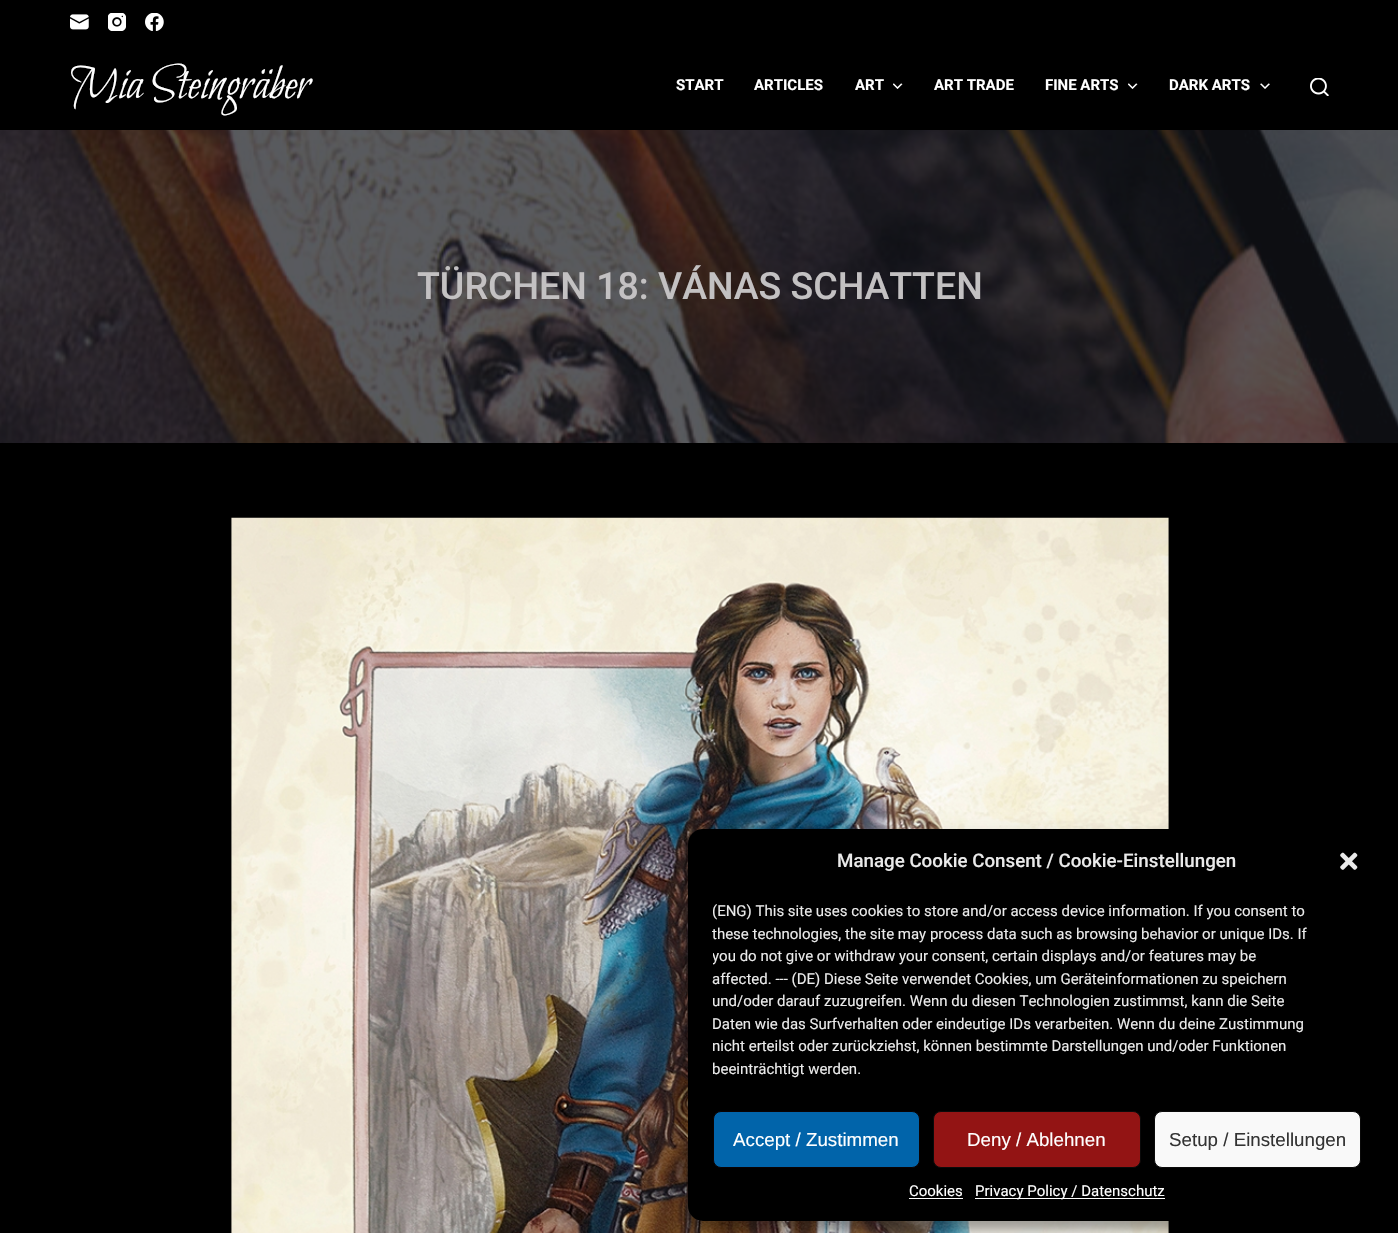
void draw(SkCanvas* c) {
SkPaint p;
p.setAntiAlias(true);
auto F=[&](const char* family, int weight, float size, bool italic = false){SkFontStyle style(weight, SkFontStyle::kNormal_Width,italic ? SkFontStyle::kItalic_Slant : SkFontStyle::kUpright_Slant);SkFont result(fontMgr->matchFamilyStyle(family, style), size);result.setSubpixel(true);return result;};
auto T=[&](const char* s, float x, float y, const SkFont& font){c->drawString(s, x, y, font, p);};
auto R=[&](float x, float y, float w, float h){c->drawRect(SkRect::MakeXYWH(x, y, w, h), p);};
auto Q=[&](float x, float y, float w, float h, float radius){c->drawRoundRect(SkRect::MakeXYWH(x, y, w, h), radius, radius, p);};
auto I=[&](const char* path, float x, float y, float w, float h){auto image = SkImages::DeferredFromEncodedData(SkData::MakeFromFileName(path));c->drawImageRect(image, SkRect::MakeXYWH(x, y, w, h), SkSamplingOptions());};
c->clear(0xff000000);
I("1.png",70,14,19,16);
I("2.png",108,13,18,18);
I("3.png",145,13,19,18);
auto f1 = F("Bilbo Swash Caps",400,50);
p.setColor(0xffffffff);
T("Mia Steingräber",70,98,f1);
auto f2 = F("Roboto",700,15);
T("START",676,90,f2);
T("ARTICLES",754,90,f2);
T("ART",855,90,f2);
I("4.png",893,83,10,6);
T("ART TRADE",934,90,f2);
T("FINE ARTS",1045,90,f2);
I("4.png",1128,83,10,6);
T("DARK ARTS",1169,90,f2);
I("5.png",1260,83,10,6);
I("6.png",1310,78,19,18);
I("7.png",0,130,1398,313);
auto f3 = F("Roboto",500,37.5);
p.setColor(0xffc3c1c2);
T("TÜRCHEN 18: VÁNAS SCHATTEN",417,299,f3);
I("8.png",231,517,938,716);
p.setColor(0x3b000000);
p.setMaskFilter(SkMaskFilter::MakeBlur(kNormal_SkBlurStyle, 4));
c->drawRoundRect(SkRect::MakeXYWH(688,836,698,393),15,15,p);
p.setMaskFilter(nullptr);
p.setColor(0x30000000);
p.setMaskFilter(SkMaskFilter::MakeBlur(kNormal_SkBlurStyle, 12.5));
c->drawRoundRect(SkRect::MakeXYWH(688,841,698,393),15,15,p);
p.setMaskFilter(nullptr);
p.setColor(0xff000000);
Q(688,829,698,392,15);
auto f4 = F("Roboto",500,18.75);
p.setColor(0xffeaeaea);
T("Manage Cookie Consent / Cookie-Einstellungen",837,867,f4);
I("9.png",1340,852,18,18);
auto f5 = F("Roboto",400,15);
T("(ENG) This site uses cookies to store and/or access device information. If you consent to",712,916,f5);
T("these technologies, the site may process data such as browsing behavior or unique IDs. If",712,939,f5);
c->save();
c->clipRect(SkRect::MakeXYWH(713,900,648,186));
T("you do not give or withdraw your consent, certain displays and/or features may be",712,961,f5);
c->restore();
T("affected. --- (DE) Diese Seite verwendet Cookies, um Geräteinformationen zu speichern",712,984,f5);
T("und/oder darauf zuzugreifen. Wenn du diesen Technologien zustimmst, kann die Seite",712,1006,f5);
T("Daten wie das Surfverhalten oder eindeutige IDs verarbeiten. Wenn du deine Zustimmung",712,1029,f5);
T("nicht erteilst oder zurückziehst, können bestimmte Darstellungen und/oder Funktionen",712,1051,f5);
T("beeinträchtigt werden.",712,1074,f5);
p.setColor(0xff0164aa);
c->drawRoundRect(SkRect::MakeXYWH(713.5,1111.5,206,56),7.5,7.5,p);
p.setStroke(true);
p.setStrokeWidth(1);
p.setColor(0xff0a0101);
c->drawRoundRect(SkRect::MakeXYWH(713.5,1111.5,206,56),7.5,7.5,p);
auto f6 = F("Liberation Sans",400,18.75);
p.setStroke(false);
p.setColor(0xffffffff);
T("Accept / Zustimmen",733,1146,f6);
p.setColor(0xff931414);
c->drawRoundRect(SkRect::MakeXYWH(933.5,1111.5,207,56),7.5,7.5,p);
p.setStroke(true);
p.setColor(0xff0a0a0a);
c->drawRoundRect(SkRect::MakeXYWH(933.5,1111.5,207,56),7.5,7.5,p);
p.setStroke(false);
p.setColor(0xffffffff);
T("Deny / Ablehnen",967,1146,f6);
p.setColor(0xfff9f9f9);
c->drawRoundRect(SkRect::MakeXYWH(1154.5,1111.5,206,56),7.5,7.5,p);
p.setStroke(true);
p.setColor(0xff0a0a0a);
c->drawRoundRect(SkRect::MakeXYWH(1154.5,1111.5,206,56),7.5,7.5,p);
p.setStroke(false);
p.setColor(0xff333333);
T("Setup / Einstellungen",1169,1146,f6);
p.setColor(0xffffffff);
T("Cookies",909,1196,f5);
R(909,1198,54,1);
R(975,1198,190,1);
T("Privacy Policy / Datenschutz",975,1196,f5);
}
